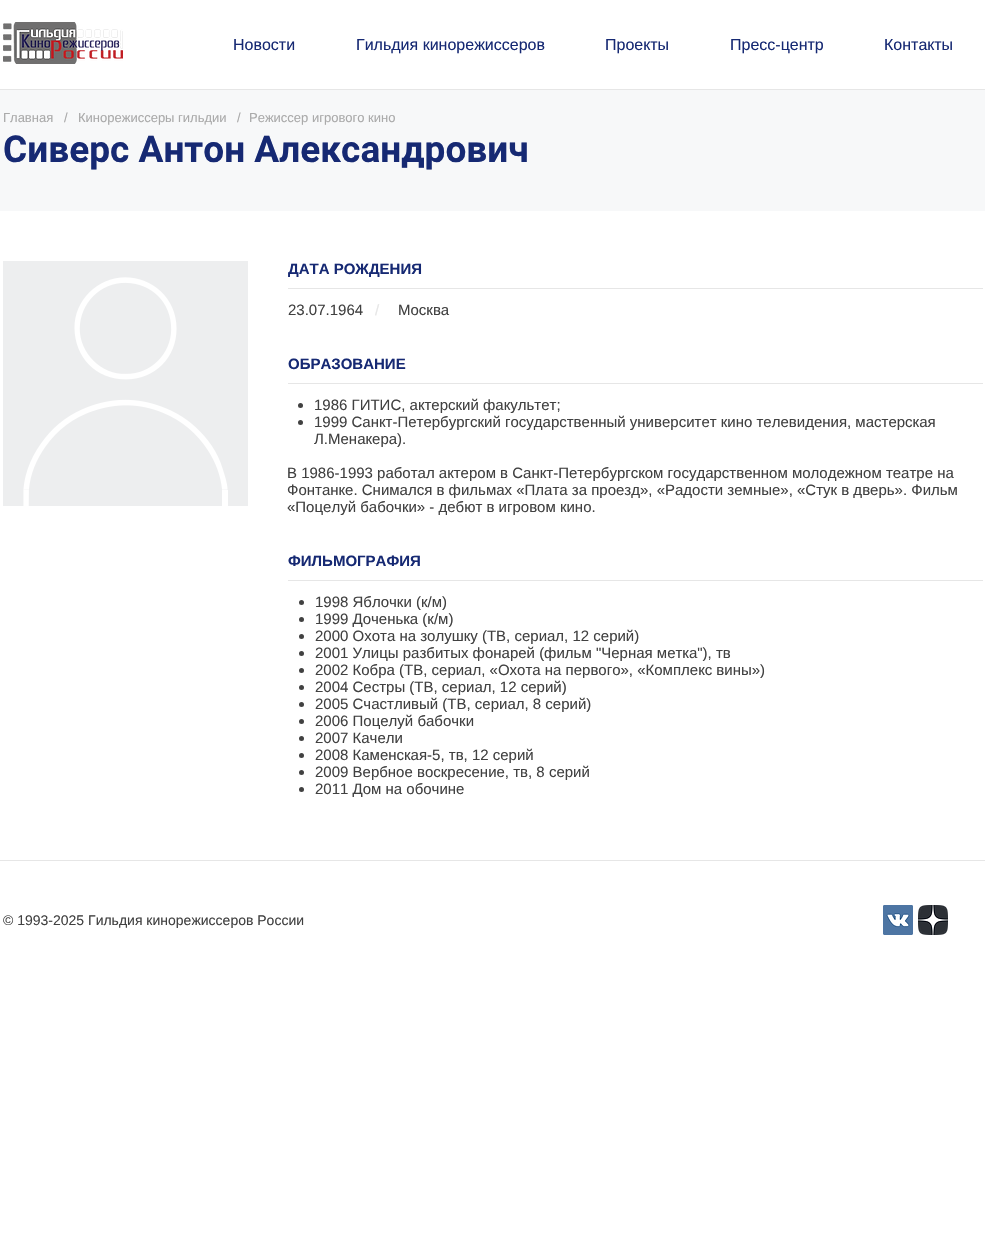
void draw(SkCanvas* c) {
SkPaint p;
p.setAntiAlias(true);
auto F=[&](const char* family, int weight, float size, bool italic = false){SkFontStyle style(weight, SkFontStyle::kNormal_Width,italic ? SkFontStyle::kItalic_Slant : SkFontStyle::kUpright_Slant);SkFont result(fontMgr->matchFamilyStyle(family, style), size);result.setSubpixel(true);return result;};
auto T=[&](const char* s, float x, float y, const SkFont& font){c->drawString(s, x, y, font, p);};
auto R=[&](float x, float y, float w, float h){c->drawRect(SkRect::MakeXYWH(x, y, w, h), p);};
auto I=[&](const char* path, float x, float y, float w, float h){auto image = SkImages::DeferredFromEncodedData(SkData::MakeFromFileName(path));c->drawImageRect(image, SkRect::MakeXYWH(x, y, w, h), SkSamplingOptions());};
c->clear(0xffffffff);
I("1.png",3,22,120,42);
auto f1 = F("Liberation Sans",400,16);
p.setColor(0xff162973);
T("Новости",233,50,f1);
T("Гильдия кинорежиссеров",356,50,f1);
T("Проекты",605,50,f1);
T("Пресс-центр",730,50,f1);
T("Контакты",884,50,f1);
p.setColor(0xffe6e6e6);
R(0,89,985,1);
p.setColor(0xfff7f8f9);
R(0,90,985,121);
auto f2 = F("Liberation Sans",400,13);
p.setColor(0xffaaaaaa);
T("Главная",3,122,f2);
T("/",64,122,f2);
T("Кинорежиссеры гильдии",78,122,f2);
T("/",237,122,f2);
T("Режиссер игрового кино",249,122,f2);
auto f3 = F("Roboto",700,37);
p.setColor(0xff162973);
T("Сиверс Антон Александрович",3,162,f3);
I("2.png",3,261,245,245);
auto f4 = F("Liberation Sans",700,15);
T("ДАТА РОЖДЕНИЯ",288,274,f4);
p.setColor(0xffe6e6e6);
R(288,288,695,1);
auto f5 = F("Liberation Sans",400,15);
p.setColor(0xff414141);
T("23.07.1964",288,315,f5);
p.setColor(0xffe6e6e6);
T("/",375,315,f5);
p.setColor(0xff414141);
T("Москва",398,315,f5);
p.setColor(0xff162973);
T("ОБРАЗОВАНИЕ",288,369,f4);
p.setColor(0xffe6e6e6);
R(288,383,695,1);
p.setColor(0xff414141);
c->drawCircle(300.5,405.5,2.5,p);
T("1986 ГИТИС, актерский факультет;",314,410,f5);
c->drawCircle(300.5,422.5,2.5,p);
T("1999 Санкт-Петербургский государственный университет кино телевидения, мастерская",314,427,f5);
T("Л.Менакера).",314,444,f5);
T("В 1986-1993 работал актером в Санкт-Петербургском государственном молодежном театре на",287,478,f5);
T("Фонтанке. Снимался в фильмах «Плата за проезд», «Радости земные», «Стук в дверь». Фильм",287,495,f5);
T("«Поцелуй бабочки» - дебют в игровом кино.",287,512,f5);
p.setColor(0xff162973);
T("ФИЛЬМОГРАФИЯ",288,566,f4);
p.setColor(0xffe6e6e6);
R(288,580,695,1);
p.setColor(0xff414141);
c->drawCircle(301.5,602.5,2.5,p);
T("1998 Яблочки (к/м)",315,607,f5);
c->drawCircle(301.5,619.5,2.5,p);
T("1999 Доченька (к/м)",315,624,f5);
c->drawCircle(301.5,636.5,2.5,p);
T("2000 Охота на золушку (ТВ, сериал, 12 серий)",315,641,f5);
c->drawCircle(301.5,653.5,2.5,p);
T("2001 Улицы разбитых фонарей (фильм \"Черная метка\"), тв",315,658,f5);
c->drawCircle(301.5,670.5,2.5,p);
T("2002 Кобра (ТВ, сериал, «Охота на первого», «Комплекс вины»)",315,675,f5);
c->drawCircle(301.5,687.5,2.5,p);
T("2004 Сестры (ТВ, сериал, 12 серий)",315,692,f5);
c->drawCircle(301.5,704.5,2.5,p);
T("2005 Счастливый (ТВ, сериал, 8 серий)",315,709,f5);
c->drawCircle(301.5,721.5,2.5,p);
T("2006 Поцелуй бабочки",315,726,f5);
c->drawCircle(301.5,738.5,2.5,p);
T("2007 Качели",315,743,f5);
c->drawCircle(301.5,755.5,2.5,p);
T("2008 Каменская-5, тв, 12 серий",315,760,f5);
c->drawCircle(301.5,772.5,2.5,p);
T("2009 Вербное воскресение, тв, 8 серий",315,777,f5);
c->drawCircle(301.5,789.5,2.5,p);
T("2011 Дом на обочине",315,794,f5);
p.setColor(0xffe6e6e6);
R(0,860,985,1);
auto f6 = F("Liberation Sans",400,14);
p.setColor(0xff414141);
T("© 1993-2025 Гильдия кинорежиссеров России",3,925,f6);
I("3.png",883,905,30,30);
I("4.png",918,905,30,30);
}
